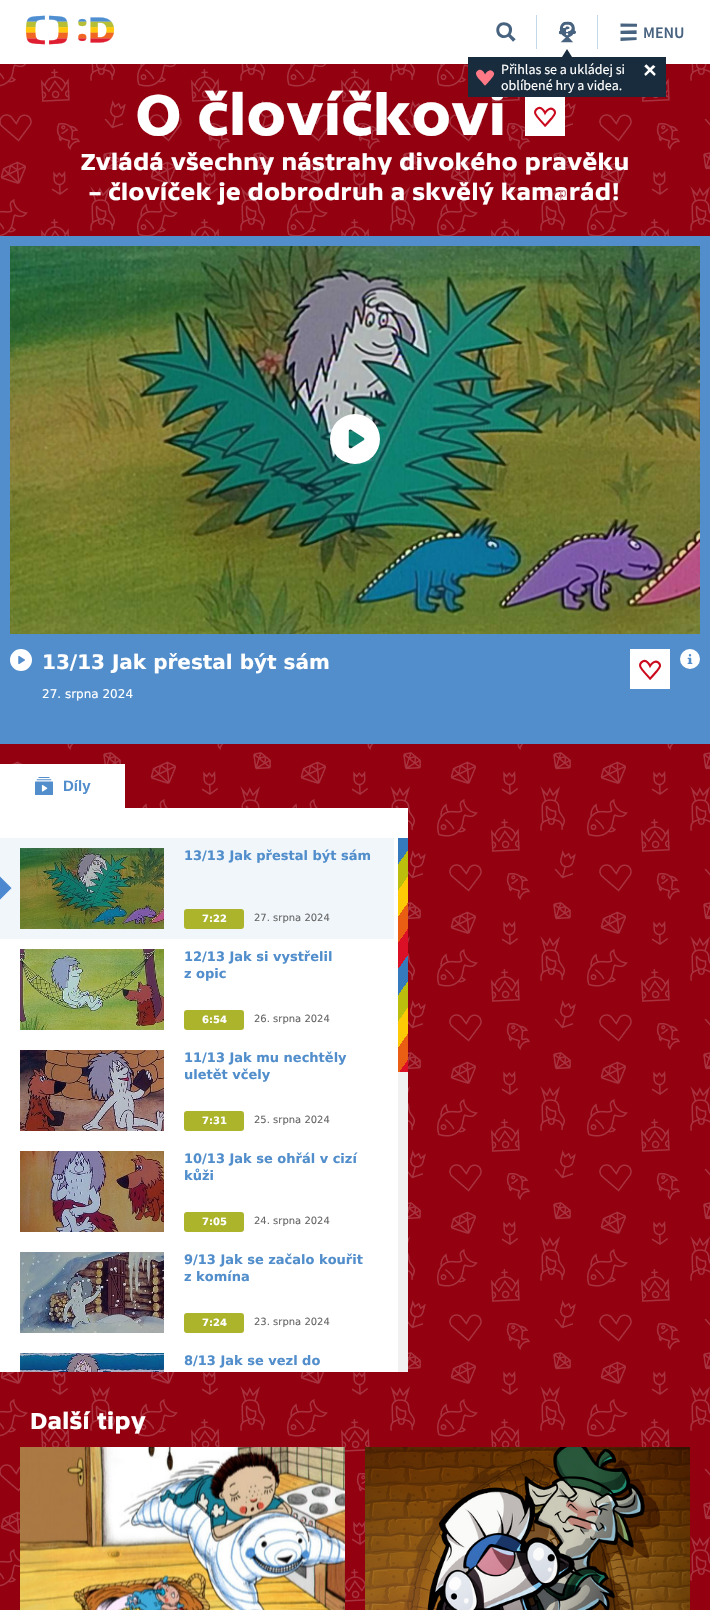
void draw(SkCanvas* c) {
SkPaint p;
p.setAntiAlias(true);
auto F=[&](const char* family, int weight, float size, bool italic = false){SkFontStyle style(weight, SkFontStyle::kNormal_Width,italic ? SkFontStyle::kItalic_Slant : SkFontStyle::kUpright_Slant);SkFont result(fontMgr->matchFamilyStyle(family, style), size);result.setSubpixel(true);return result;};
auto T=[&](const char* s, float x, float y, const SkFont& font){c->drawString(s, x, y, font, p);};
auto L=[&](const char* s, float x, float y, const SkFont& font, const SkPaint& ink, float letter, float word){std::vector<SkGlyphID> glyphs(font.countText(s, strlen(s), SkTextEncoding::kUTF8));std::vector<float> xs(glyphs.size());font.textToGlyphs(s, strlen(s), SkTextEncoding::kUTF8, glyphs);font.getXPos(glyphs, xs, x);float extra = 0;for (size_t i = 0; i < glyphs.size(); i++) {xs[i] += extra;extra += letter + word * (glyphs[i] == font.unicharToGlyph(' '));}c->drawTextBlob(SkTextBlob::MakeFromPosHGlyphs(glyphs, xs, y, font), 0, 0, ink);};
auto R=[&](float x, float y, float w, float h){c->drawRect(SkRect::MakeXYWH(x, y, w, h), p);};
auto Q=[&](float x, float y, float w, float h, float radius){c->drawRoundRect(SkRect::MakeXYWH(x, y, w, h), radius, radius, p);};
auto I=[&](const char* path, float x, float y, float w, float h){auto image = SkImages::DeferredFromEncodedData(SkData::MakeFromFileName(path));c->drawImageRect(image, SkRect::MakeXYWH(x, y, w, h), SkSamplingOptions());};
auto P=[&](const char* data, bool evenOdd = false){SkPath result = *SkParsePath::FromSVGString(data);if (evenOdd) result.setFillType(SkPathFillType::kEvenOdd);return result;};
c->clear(0xff93000f);
I("1.png",0,64,710,1538);
p.setColor(0xffffffff);
R(0,0,710,64);
I("2.png",25,15,90,30);
I("3.png",496,22,20,20);
p.setColor(0xffc3d7e6);
R(597,15,1,34);
I("4.png",620,23,17,18);
auto f1 = F("Source Sans Pro",600,16);
p.setColor(0xff486380);
T("MENU",643,38,f1);
p.setColor(0xffc3d7e6);
R(536,15,1,34);
I("5.png",558,21,18,22);
auto f2 = F("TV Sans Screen",700,60);
p.setColor(0xffffffff);
L("O človíčkovi",135,135,f2,p,-.9,0);
p.setColor(0xff192c3d);
R(468,57,198,40);
c->drawPath(P("M572 57h-10l5-8z"),p);
I("6.png",476,69,19,17);
auto f3 = F("Source Sans Pro",400,14);
p.setColor(0xffffffff);
T("Přihlas se a ukládej si",501,74,f3);
T("oblíbené hry a videa.",501,90,f3);
I("7.png",644,64,12,12);
R(525,97,40,39);
I("8.png",534,106,22,21);
auto f4 = F("TV Sans Screen",700,24);
T("– človíček je dobrodruh a skvělý kamarád!",89,200,f4);
p.setColor(0xffcc878e);
T("p",559,197,f3);
p.setColor(0xffffffff);
T("Zvládá všechny nástrahy divokého pravěku",81,170,f4);
p.setColor(0xff518ecb);
R(0,236,710,508);
I("9.png",10,246,690,388);
I("10.png",330,414,50,50);
I("11.png",10,649,22,22);
auto f5 = F("DejaVu Sans",700,20);
p.setColor(0xffffffff);
T("13/13 Jak přestal být sám",42,669,f5);
auto f6 = F("DejaVu Sans",400,12);
T("27. srpna 2024",42,698,f6);
R(630,649,40,40);
I("8.png",639,659,22,21);
I("12.png",680,649,20,20);
R(0,764,125,44);
I("13.png",35,777,18,18);
auto f7 = F("Liberation Sans",700,15);
p.setColor(0xff518ecb);
T("Díly",63,791,f7);
p.setColor(0xffffffff);
R(0,808,408,30);
R(0,838,398,534);
p.setColor(0xfff1f6fb);
R(0,838,394,101);
I("14.png",0,876,12,24);
I("15.png",20,848,144,81);
auto f8 = F("DejaVu Sans",700,13);
p.setColor(0xff518ecb);
T("13/13 Jak přestal být sám",184,860,f8);
p.setColor(0xffabb42a);
Q(184,909,60,20,3);
auto f9 = F("DejaVu Sans",700,10);
p.setColor(0xffffffff);
T("7:22",202,922,f9);
auto f10 = F("DejaVu Sans",400,10);
p.setColor(0xff666666);
T("27. srpna 2024",254,921,f10);
I("16.png",20,949,144,81);
p.setColor(0xff518ecb);
T("12/13 Jak si vystřelil",184,961,f8);
T("z opic",184,978,f8);
p.setColor(0xffabb42a);
Q(184,1010,60,20,3);
p.setColor(0xffffffff);
T("6:54",202,1023,f9);
p.setColor(0xff666666);
T("26. srpna 2024",254,1022,f10);
I("17.png",20,1050,144,81);
p.setColor(0xff518ecb);
T("11/13 Jak mu nechtěly",184,1062,f8);
T("uletět včely",184,1079,f8);
p.setColor(0xffabb42a);
Q(184,1111,60,20,3);
p.setColor(0xffffffff);
T("7:31",202,1124,f9);
p.setColor(0xff666666);
T("25. srpna 2024",254,1123,f10);
I("18.png",20,1151,144,81);
p.setColor(0xff518ecb);
T("10/13 Jak se ohřál v cizí",184,1163,f8);
T("kůži",184,1180,f8);
p.setColor(0xffabb42a);
Q(184,1212,60,20,3);
p.setColor(0xffffffff);
T("7:05",202,1225,f9);
p.setColor(0xff666666);
T("24. srpna 2024",254,1224,f10);
I("19.png",20,1252,144,81);
p.setColor(0xff518ecb);
T("9/13 Jak se začalo kouřit",184,1264,f8);
T("z komína",184,1281,f8);
p.setColor(0xffabb42a);
Q(184,1313,60,20,3);
p.setColor(0xffffffff);
T("7:24",202,1326,f9);
p.setColor(0xff666666);
T("23. srpna 2024",254,1325,f10);
I("20.png",20,1353,144,19);
p.setColor(0xff518ecb);
T("8/13 Jak se vezl do",184,1365,f8);
p.setColor(0xfff1f1f1);
R(398,1072,10,300);
{
const SkColor colors[] = {0xff357abc,0xff357abc,0xffbcbe0d,0xffbcbe0d,0xfffeca06,0xfffeca06,0xffe95e12,0xffe95e12,0xffdb0f26,0xffdb0f26,0xff357abc,0xff357abc,0xffbcbe0d,0xffbcbe0d,0xfffeca06,0xfffeca06,0xffe95e12,0xffe95e12,0xffdb0f26,0xffdb0f26};
const float stops[] = {0,.1,.1,.2,.2,.3,.3,.4,.4,.5,.5,.6,.6,.7,.7,.8,.8,.9,.9,1};
const SkPoint ends[] = {{345,914}, {468,1000}};
p.setShader(SkGradientShader::MakeLinear(ends, colors, stops, 20, SkTileMode::kClamp));
p.setAlpha(255);
}
R(398,838,10,234);
p.setShader(nullptr);
p.setColor(0xffffffff);
T("Další tipy",30,1429,f4);
I("21.png",20,1447,325,163);
I("22.png",365,1447,325,163);
}
